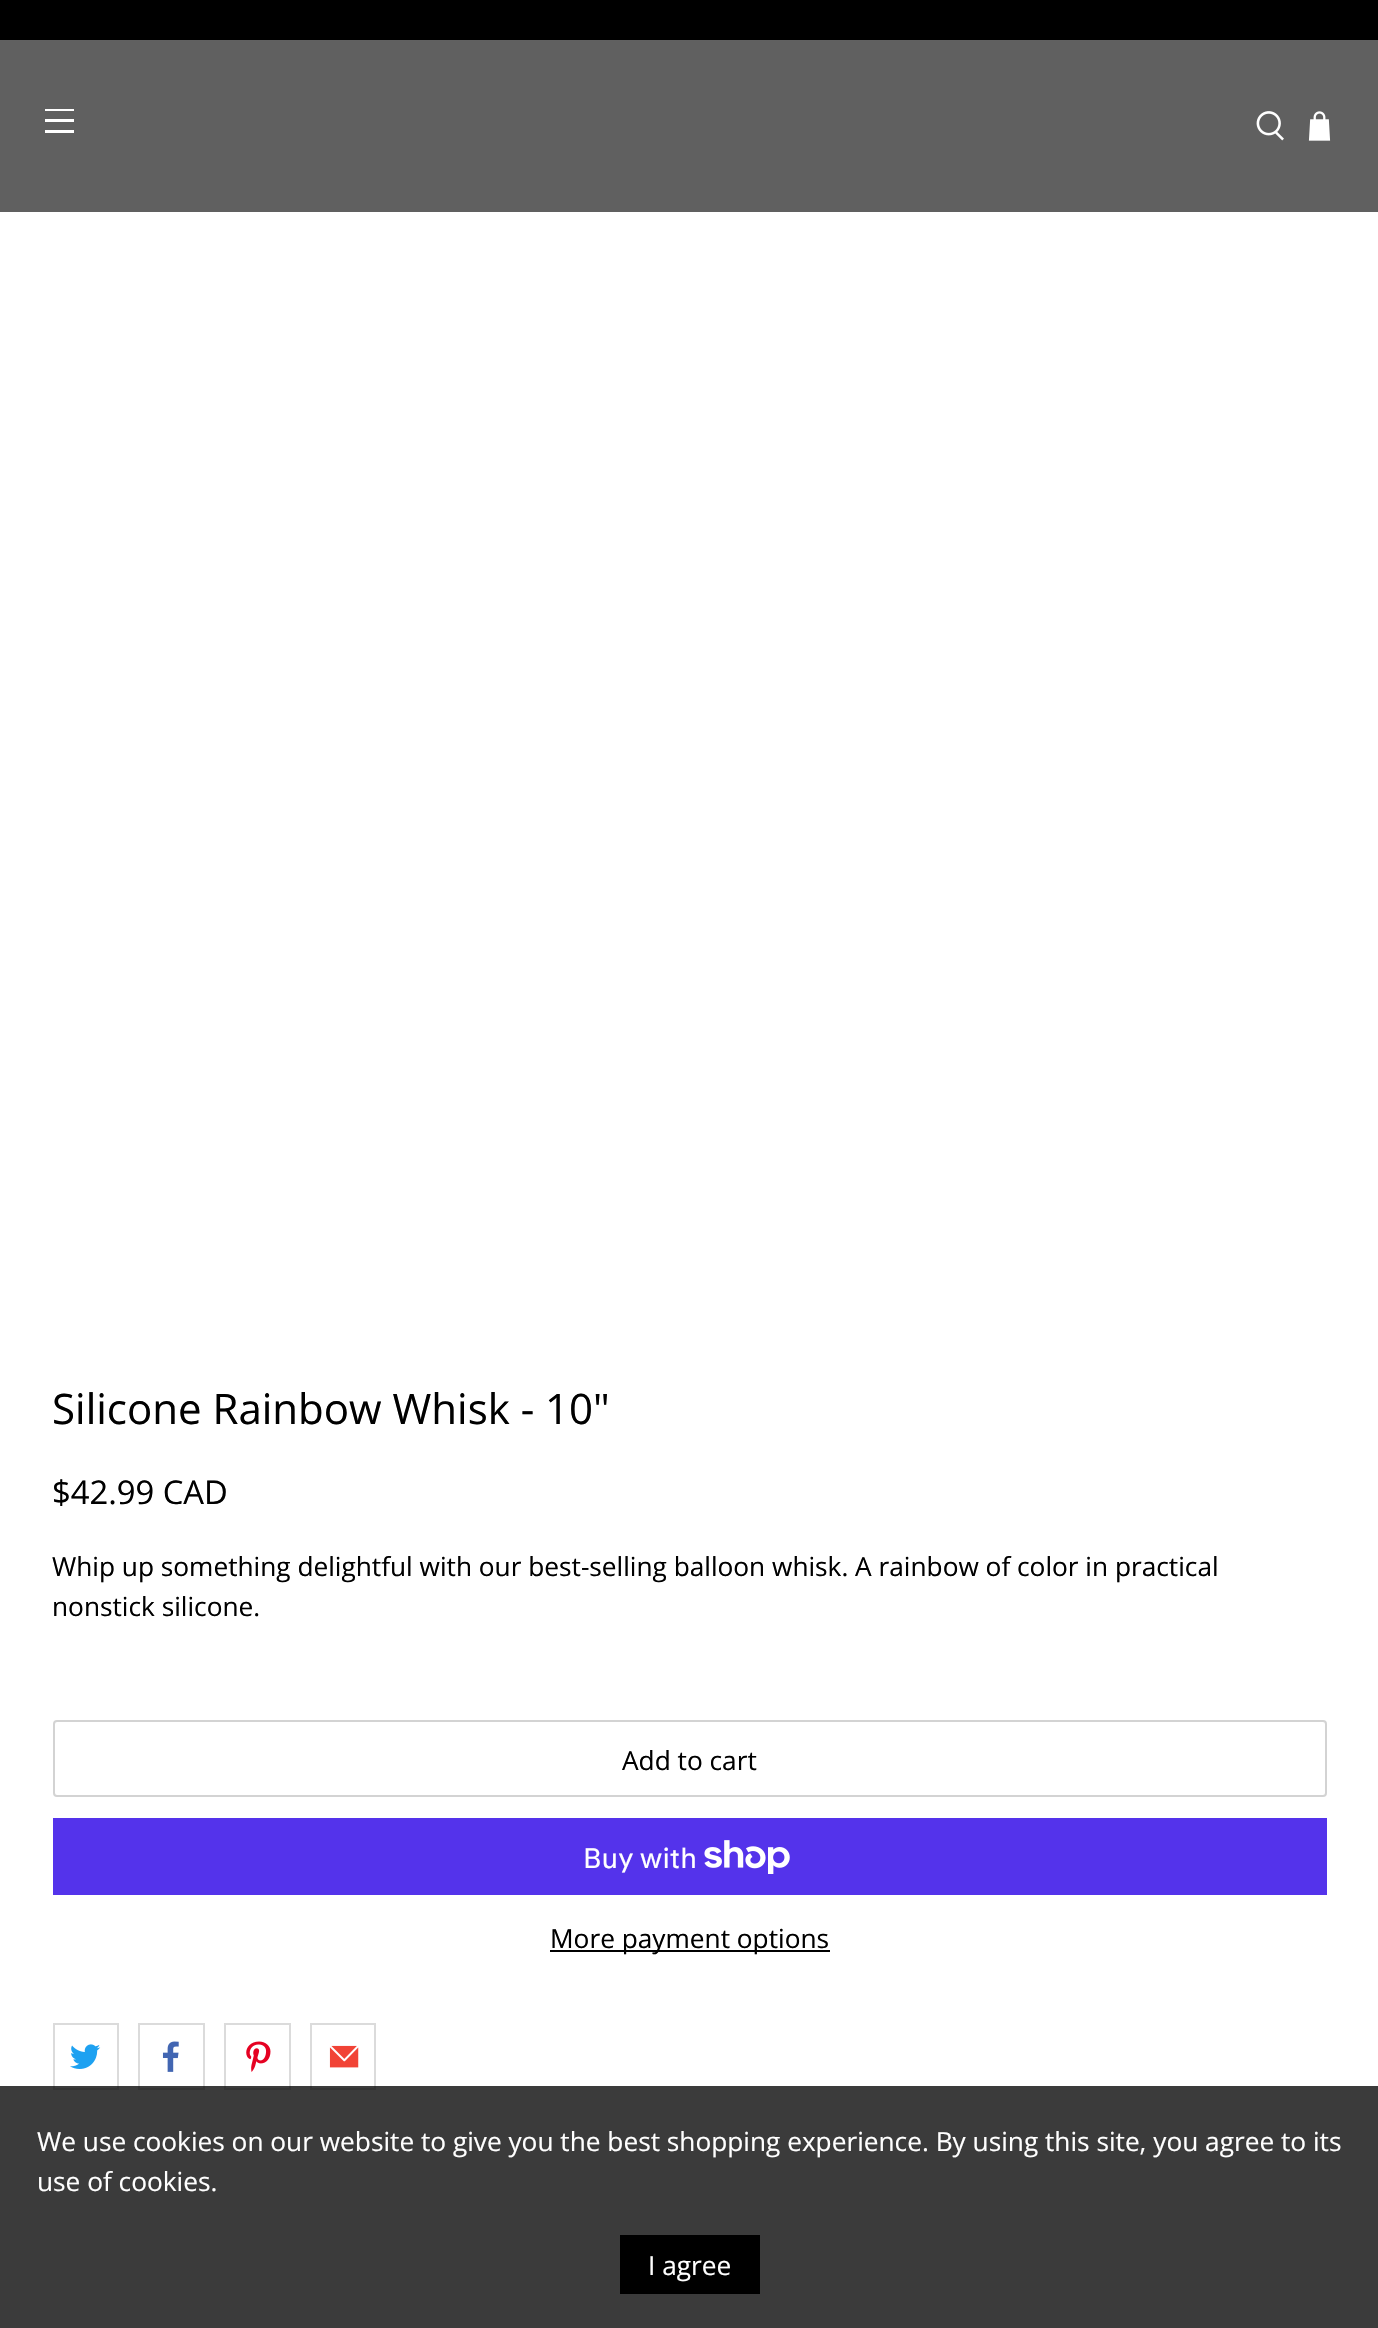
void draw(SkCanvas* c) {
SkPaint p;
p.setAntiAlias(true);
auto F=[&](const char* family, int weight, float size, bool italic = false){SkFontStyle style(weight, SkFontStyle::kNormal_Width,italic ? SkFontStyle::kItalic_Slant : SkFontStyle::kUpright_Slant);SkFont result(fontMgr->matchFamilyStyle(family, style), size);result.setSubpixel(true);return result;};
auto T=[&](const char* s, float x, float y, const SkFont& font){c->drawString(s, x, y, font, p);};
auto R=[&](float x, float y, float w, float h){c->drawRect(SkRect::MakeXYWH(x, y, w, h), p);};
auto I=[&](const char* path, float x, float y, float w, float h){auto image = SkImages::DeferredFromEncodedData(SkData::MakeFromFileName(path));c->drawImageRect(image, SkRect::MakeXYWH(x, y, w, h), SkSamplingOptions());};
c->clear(0xffffffff);
p.setColor(0xff000000);
R(0,0,1378,40);
p.setColor(0xff606060);
R(0,40,1378,172);
p.setColor(0xffffffff);
R(45,109,29,2);
R(45,119,29,3);
R(45,130,29,3);
I("1.png",1256,111,28,30);
I("2.png",1308,111,23,30);
auto f1 = F("Open Sans",400,42);
p.setColor(0xff000000);
T("Silicone Rainbow Whisk - 10\"",52,1424,f1);
auto f2 = F("Open Sans",400,32.75);
T("$42.99 CAD",52,1504,f2);
auto f3 = F("Open Sans",400,26.25);
T("Whip up something delightful with our best-selling balloon whisk. A rainbow of color in practical",52,1576,f3);
T("nonstick silicone.",52,1616,f3);
p.setStroke(true);
p.setStrokeWidth(2);
p.setColor(0xffd3d3d3);
c->drawRoundRect(SkRect::MakeXYWH(54,1721,1272,75),3,3,p);
p.setStroke(false);
p.setColor(0xff000000);
T("Add to cart",622,1770,f3);
p.setColor(0xff5433eb);
R(53,1818,1274,77);
auto f4 = F("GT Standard",400,28);
p.setColor(0xffffffff);
T("Buy with",583,1868,f4);
I("3.png",704,1840,86,34);
p.setColor(0xff000000);
R(550,1950,280,2);
T("More payment options",550,1948,f3);
p.setStroke(true);
p.setColor(0xffdbdbdb);
c->drawRect(SkRect::MakeXYWH(54,2024,64,65),p);
I("4.png",70,2044,31,25);
c->drawRect(SkRect::MakeXYWH(139,2024,65,65),p);
I("5.png",162,2041,17,31);
c->drawRect(SkRect::MakeXYWH(225,2024,65,65),p);
I("6.png",246,2041,25,31);
c->drawRect(SkRect::MakeXYWH(311,2024,64,65),p);
I("7.png",329,2045,30,23);
p.setStroke(false);
p.setColor(0xc4000000);
R(0,2086,1378,242);
p.setColor(0xffffffff);
T("We use cookies on our website to give you the best shopping experience. By using this site, you agree to its",37,2151,f3);
T("use of cookies.",37,2191,f3);
p.setColor(0xff000000);
R(620,2235,140,59);
p.setColor(0xffffffff);
T("I agree",648,2275,f3);
}
